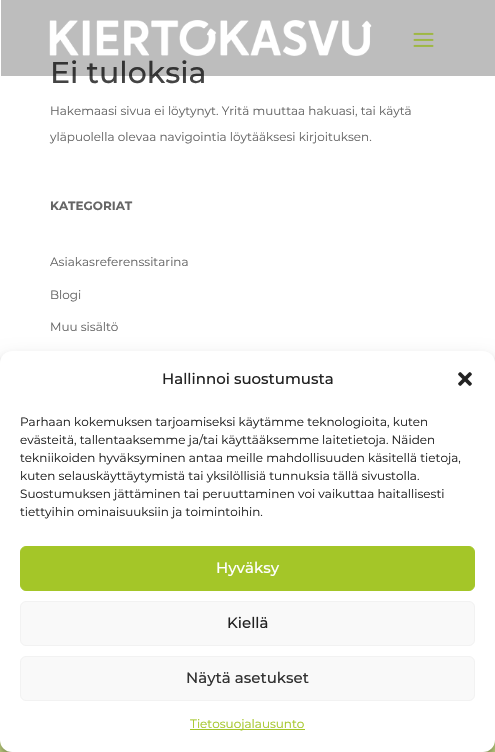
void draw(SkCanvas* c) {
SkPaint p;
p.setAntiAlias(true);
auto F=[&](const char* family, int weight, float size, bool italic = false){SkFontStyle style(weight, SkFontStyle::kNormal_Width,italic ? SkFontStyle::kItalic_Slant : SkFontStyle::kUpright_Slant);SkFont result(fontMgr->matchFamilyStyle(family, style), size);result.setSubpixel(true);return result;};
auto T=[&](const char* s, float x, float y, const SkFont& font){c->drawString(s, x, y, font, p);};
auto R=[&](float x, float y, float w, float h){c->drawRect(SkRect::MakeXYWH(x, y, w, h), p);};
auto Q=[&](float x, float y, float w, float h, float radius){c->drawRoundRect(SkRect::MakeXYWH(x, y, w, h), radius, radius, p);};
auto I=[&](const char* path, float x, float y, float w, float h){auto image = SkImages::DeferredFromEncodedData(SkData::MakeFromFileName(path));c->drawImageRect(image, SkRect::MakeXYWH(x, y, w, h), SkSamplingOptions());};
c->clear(0xffffffff);
auto f1 = F("Montserrat",500,30);
p.setColor(0xff444444);
T("Ei tuloksia",50,83,f1);
p.setColor(0x42000000);
R(1,0,494,76);
I("1.png",49,20,323,36);
I("2.png",413,32,21,15);
auto f2 = F("Montserrat",400,12);
p.setColor(0xff666666);
T("Hakemaasi sivua ei löytynyt. Yritä muuttaa hakuasi, tai käytä",50,115,f2);
T("yläpuolella olevaa navigointia löytääksesi kirjoituksen.",50,141,f2);
auto f3 = F("Montserrat",700,12);
T("KATEGORIAT",50,210,f3);
T("Asiakasreferenssitarina",50,266,f2);
T("Blogi",50,299,f2);
T("Muu sisältö",50,331,f2);
{
const SkColor colors[] = {0xffa4c628,0xffffffff};
const float stops[] = {0,1};
const SkPoint ends[] = {{247,441}, {248,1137}};
p.setShader(SkGradientShader::MakeLinear(ends, colors, stops, 2, SkTileMode::kClamp));
p.setAlpha(255);
}
R(0,740,495,12);
p.setShader(nullptr);
p.setColor(0x3b000000);
p.setMaskFilter(SkMaskFilter::MakeBlur(kNormal_SkBlurStyle, 3));
c->drawRoundRect(SkRect::MakeXYWH(0,357,495,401),12,12,p);
p.setMaskFilter(nullptr);
p.setColor(0x30000000);
p.setMaskFilter(SkMaskFilter::MakeBlur(kNormal_SkBlurStyle, 10));
c->drawRoundRect(SkRect::MakeXYWH(0,361,495,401),12,12,p);
p.setMaskFilter(nullptr);
p.setColor(0xffffffff);
Q(0,351,495,401,12);
auto f4 = F("Montserrat",500,15);
p.setColor(0xff222222);
T("Hallinnoi suostumusta",162,384,f4);
I("3.png",458,372,14,14);
T("Parhaan kokemuksen tarjoamiseksi käytämme teknologioita, kuten",20,426,f2);
T("evästeitä, tallentaaksemme ja/tai käyttääksemme laitetietoja. Näiden",20,444,f2);
T("tekniikoiden hyväksyminen antaa meille mahdollisuuden käsitellä tietoja,",20,462,f2);
T("kuten selauskäyttäytymistä tai yksilöllisiä tunnuksia tällä sivustolla.",20,480,f2);
T("Suostumuksen jättäminen tai peruuttaminen voi vaikuttaa haitallisesti",20,498,f2);
T("tiettyihin ominaisuuksiin ja toimintoihin.",20,516,f2);
p.setColor(0xffa4c628);
c->drawRoundRect(SkRect::MakeXYWH(20.5,546.5,454,44),5.5,5.5,p);
p.setStroke(true);
p.setStrokeWidth(1);
c->drawRoundRect(SkRect::MakeXYWH(20.5,546.5,454,44),5.5,5.5,p);
p.setStroke(false);
p.setColor(0xffffffff);
T("Hyväksy",216,573,f4);
p.setColor(0xfff9f9f9);
c->drawRoundRect(SkRect::MakeXYWH(20.5,601.5,454,44),5.5,5.5,p);
p.setStroke(true);
p.setColor(0xfff2f2f2);
c->drawRoundRect(SkRect::MakeXYWH(20.5,601.5,454,44),5.5,5.5,p);
p.setStroke(false);
p.setColor(0xff222222);
T("Kiellä",227,628,f4);
p.setColor(0xfff9f9f9);
c->drawRoundRect(SkRect::MakeXYWH(20.5,656.5,454,44),5.5,5.5,p);
p.setStroke(true);
p.setColor(0xfff2f2f2);
c->drawRoundRect(SkRect::MakeXYWH(20.5,656.5,454,44),5.5,5.5,p);
p.setStroke(false);
p.setColor(0xff333333);
T("Näytä asetukset",186,683,f4);
p.setColor(0xffa4c628);
R(190,729,115,1);
T("Tietosuojalausunto",190,728,f2);
}
